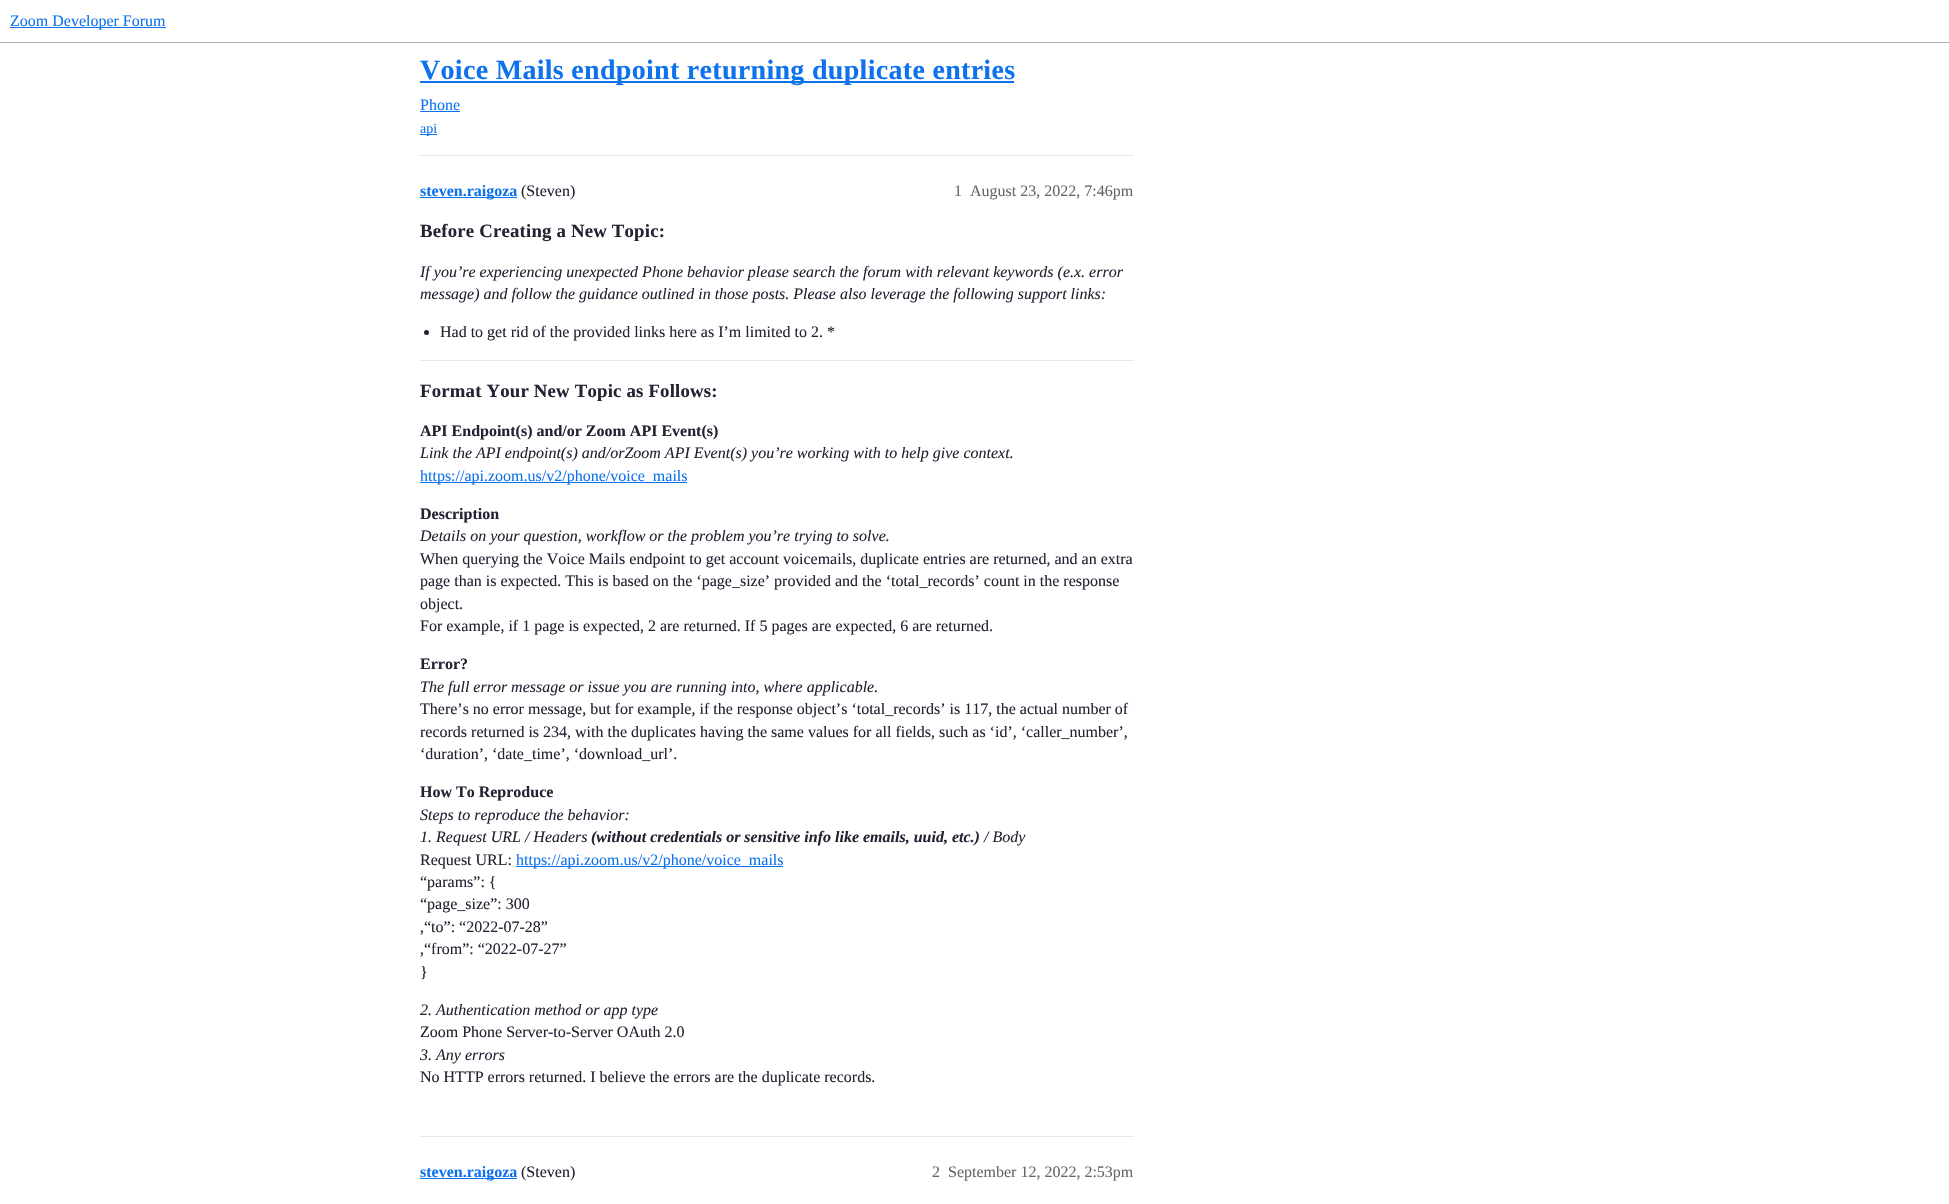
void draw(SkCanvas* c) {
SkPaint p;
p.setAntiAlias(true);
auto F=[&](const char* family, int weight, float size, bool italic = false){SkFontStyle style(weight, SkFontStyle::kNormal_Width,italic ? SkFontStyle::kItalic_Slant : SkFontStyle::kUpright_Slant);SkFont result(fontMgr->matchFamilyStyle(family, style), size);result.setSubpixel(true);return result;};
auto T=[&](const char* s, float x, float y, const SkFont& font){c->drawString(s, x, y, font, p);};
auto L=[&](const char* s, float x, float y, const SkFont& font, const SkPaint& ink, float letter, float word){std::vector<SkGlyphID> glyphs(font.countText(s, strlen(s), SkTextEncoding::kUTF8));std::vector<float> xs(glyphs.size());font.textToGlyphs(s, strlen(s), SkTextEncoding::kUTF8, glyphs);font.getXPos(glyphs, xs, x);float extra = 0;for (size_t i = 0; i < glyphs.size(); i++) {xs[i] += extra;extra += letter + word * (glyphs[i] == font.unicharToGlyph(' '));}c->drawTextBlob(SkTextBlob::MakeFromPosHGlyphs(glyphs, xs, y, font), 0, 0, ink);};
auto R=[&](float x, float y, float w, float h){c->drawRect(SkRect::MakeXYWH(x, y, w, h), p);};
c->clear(0xffffffff);
p.setColor(0xffafafaf);
R(0,42,1949,1);
p.setColor(0xff0e72ed);
R(10,27,156,1);
auto f1 = F("Liberation Serif",400,16);
T("Zoom Developer Forum",10,26,f1);
R(420,81,594,2);
auto f2 = F("Liberation Serif",700,28);
L("Voice Mails endpoint returning duplicate entries",420,79,f2,p,.3,0);
T("Phone",420,110,f1);
R(420,111,40,1);
R(420,134,17,1);
auto f3 = F("Liberation Serif",400,14);
T("api",420,133,f3);
p.setColor(0xffe6e6ee);
R(420,155,714,1);
p.setColor(0xff0e72ed);
R(420,197,97,1);
auto f4 = F("Liberation Serif",700,16);
T("steven.raigoza",420,196,f4);
p.setColor(0xff232333);
T("(Steven)",521,196,f1);
p.setColor(0xff666666);
T("1",954,196,f1);
T("August 23, 2022, 7:46pm",970,196,f1);
auto f5 = F("Liberation Serif",700,18.75);
p.setColor(0xff232333);
L("Before Creating a New Topic:",420,237,f5,p,.2,0);
auto f6 = F("Liberation Serif",400,16,true);
T("If you’re experiencing unexpected Phone behavior please search the forum with relevant keywords (e.x. error",420,277,f6);
T("message) and follow the guidance outlined in those posts. Please also leverage the following support links:",420,299,f6);
c->drawCircle(426.5,332.5,2.5,p);
T("Had to get rid of the provided links here as I’m limited to 2. *",440,337,f1);
p.setColor(0xffe6e6ee);
R(420,360,714,1);
p.setColor(0xff232333);
L("Format Your New Topic as Follows:",420,397,f5,p,.2,0);
T("API Endpoint(s) and/or Zoom API Event(s)",420,436,f4);
T("Link the API endpoint(s) and/orZoom API Event(s) you’re working with to help give context.",420,458,f6);
p.setColor(0xff0e72ed);
R(420,482,267,1);
T("https://api.zoom.us/v2/phone/voice_mails",420,481,f1);
p.setColor(0xff232333);
T("Description",420,519,f4);
T("Details on your question, workflow or the problem you’re trying to solve.",420,541,f6);
T("When querying the Voice Mails endpoint to get account voicemails, duplicate entries are returned, and an extra",420,564,f1);
T("page than is expected. This is based on the ‘page_size’ provided and the ‘total_records’ count in the response",420,586,f1);
T("object.",420,609,f1);
T("For example, if 1 page is expected, 2 are returned. If 5 pages are expected, 6 are returned.",420,631,f1);
T("Error?",420,669,f4);
T("The full error message or issue you are running into, where applicable.",420,692,f6);
c->save();
c->clipRect(SkRect::MakeXYWH(420,218,714,886));
T("There’s no error message, but for example, if the response object’s ‘total_records’ is 117, the actual number of",420,714,f1);
c->restore();
T("records returned is 234, with the duplicates having the same values for all fields, such as ‘id’, ‘caller_number’,",420,737,f1);
T("‘duration’, ‘date_time’, ‘download_url’.",420,759,f1);
T("How To Reproduce",420,797,f4);
T("Steps to reproduce the behavior:",420,820,f6);
T("1. Request URL / Headers",420,842,f6);
auto f7 = F("Liberation Serif",700,16,true);
T("(without credentials or sensitive info like emails, uuid, etc.)",591,842,f7);
T("/ Body",984,842,f6);
T("Request URL:",420,865,f1);
p.setColor(0xff0e72ed);
R(516,866,267,1);
T("https://api.zoom.us/v2/phone/voice_mails",516,865,f1);
p.setColor(0xff232333);
T("“params”: {",420,887,f1);
T("“page_size”: 300",420,909,f1);
T(",“to”: “2022-07-28”",420,932,f1);
T(",“from”: “2022-07-27”",420,954,f1);
T("}",420,977,f1);
T("2. Authentication method or app type",420,1015,f6);
T("Zoom Phone Server-to-Server OAuth 2.0",420,1037,f1);
c->save();
c->clipRect(SkRect::MakeXYWH(420,218,714,886));
T("3. Any errors",420,1060,f6);
c->restore();
T("No HTTP errors returned. I believe the errors are the duplicate records.",420,1082,f1);
p.setColor(0xffe6e6ee);
R(420,1136,714,1);
p.setColor(0xff0e72ed);
R(420,1178,97,1);
T("steven.raigoza",420,1177,f4);
p.setColor(0xff232333);
T("(Steven)",521,1177,f1);
p.setColor(0xff666666);
T("2",932,1177,f1);
T("September 12, 2022, 2:53pm",948,1177,f1);
}
